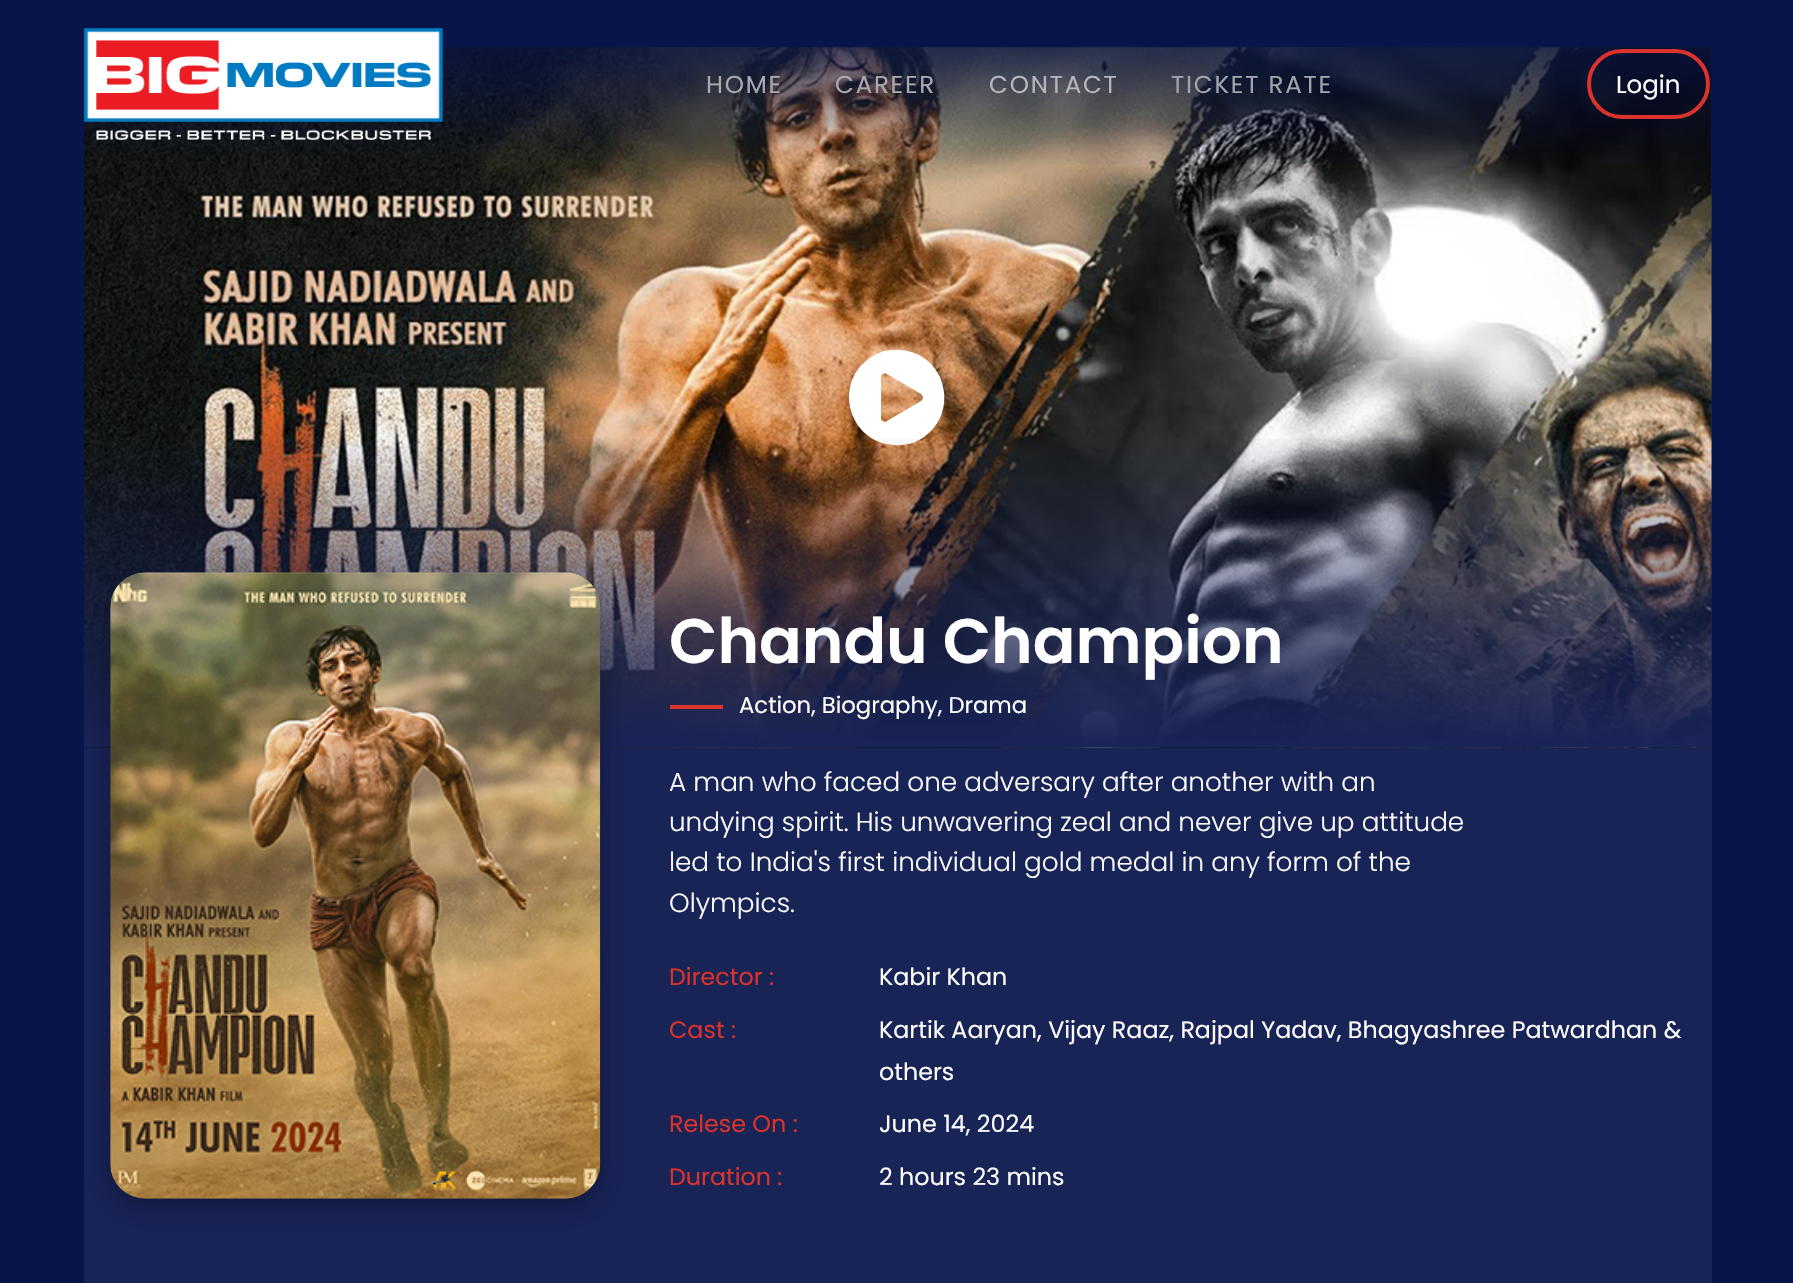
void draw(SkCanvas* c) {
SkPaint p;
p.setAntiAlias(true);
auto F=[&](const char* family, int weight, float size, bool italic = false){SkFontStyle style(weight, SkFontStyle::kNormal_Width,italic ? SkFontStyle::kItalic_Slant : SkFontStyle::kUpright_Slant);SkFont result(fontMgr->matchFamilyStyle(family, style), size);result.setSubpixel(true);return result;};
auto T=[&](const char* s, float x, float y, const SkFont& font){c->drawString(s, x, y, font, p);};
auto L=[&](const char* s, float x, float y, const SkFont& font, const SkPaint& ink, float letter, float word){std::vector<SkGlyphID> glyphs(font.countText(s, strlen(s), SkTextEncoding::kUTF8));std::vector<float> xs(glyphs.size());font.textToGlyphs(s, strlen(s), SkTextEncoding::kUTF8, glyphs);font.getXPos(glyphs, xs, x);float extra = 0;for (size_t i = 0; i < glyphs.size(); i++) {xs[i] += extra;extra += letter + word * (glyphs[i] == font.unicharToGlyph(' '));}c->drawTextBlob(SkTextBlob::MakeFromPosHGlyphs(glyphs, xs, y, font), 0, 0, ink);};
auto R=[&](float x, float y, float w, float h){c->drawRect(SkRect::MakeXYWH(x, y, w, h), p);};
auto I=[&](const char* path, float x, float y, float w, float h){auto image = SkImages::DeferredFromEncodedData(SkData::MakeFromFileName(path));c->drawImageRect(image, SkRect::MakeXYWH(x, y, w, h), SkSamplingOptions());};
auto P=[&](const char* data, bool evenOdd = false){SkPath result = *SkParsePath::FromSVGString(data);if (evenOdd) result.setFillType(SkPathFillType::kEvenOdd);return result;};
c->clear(0xff081548);
p.setColor(0xff182356);
R(84,47,1628,1236);
I("2.png",84,47,1628,701);
{
const SkColor colors[] = {0xff081548,0x00081548};
const float stops[] = {0,1};
const SkPoint ends[] = {{897,0}, {897,168}};
p.setShader(SkGradientShader::MakeLinear(ends, colors, stops, 2, SkTileMode::kClamp));
p.setAlpha(255);
}
R(84,47,1628,117);
I("1.png",84,28,359,112);
auto f1 = F("Poppins",400,24.5);
p.setShader(nullptr);
p.setColor(0xffa9aab0);
L("HOME",706,93,f1,p,1.75,0);
L("CAREER",835,93,f1,p,1.75,0);
p.setColor(0xffb5b6bb);
L("CONTACT",989,93,f1,p,1.75,0);
p.setColor(0xffa3a5ae);
L("TICKET RATE",1171,93,f1,p,1.75,0);
p.setStroke(true);
p.setStrokeWidth(4);
p.setColor(0xffdb322b);
c->drawRoundRect(SkRect::MakeXYWH(1589,51,119,66),33,33,p);
p.setStroke(false);
p.setColor(0xffffffff);
T("Login",1616,93,f1);
c->drawPath(P("M873 356c8-5 17-7 27-6c47 3 61 65 21 89c-8 5-18 7-27 6c-47-3-62-65-21-89zm48 45c1-1 2-2 2-3c0-2-1-3-2-4l-34-20c-2-1-3-1-4 0c-2 1-2 2-2 4v40c0 1 0 2 2 3l2 1l2-1z"),p);
{
const SkColor colors[] = {0x00182356,0xff182356};
const float stops[] = {0,1};
const SkPoint ends[] = {{898,432}, {898,747}};
p.setShader(SkGradientShader::MakeLinear(ends, colors, stops, 2, SkTileMode::kClamp));
p.setAlpha(255);
}
R(84,439,1628,308);
p.setShader(nullptr);
p.setColor(0x4d000000);
p.setMaskFilter(SkMaskFilter::MakeBlur(kNormal_SkBlurStyle, 12));
c->drawRoundRect(SkRect::MakeXYWH(110,579,490,627),35,35,p);
p.setMaskFilter(nullptr);
I("3.png",110,572,491,627);
auto f2 = F("Poppins",600,63);
p.setColor(0xffffffff);
T("Chandu Champion",669,663,f2);
p.setColor(0xffdb322b);
R(670,705,53,4);
auto f3 = F("Poppins",400,22.75);
p.setColor(0xffffffff);
T("Action, Biography, Drama",739,713,f3);
auto f4 = F("Poppins",300,26.25);
T("A man who faced one adversary after another with an",669,791,f4);
T("undying spirit. His unwavering zeal and never give up attitude",669,831,f4);
T("led to India's first individual gold medal in any form of the",669,871,f4);
T("Olympics.",669,912,f4);
auto f5 = F("Poppins",400,23.8);
p.setColor(0xffdb322b);
T("Director :",669,985,f5);
p.setColor(0xffffffff);
T("Kabir Khan",879,985,f5);
p.setColor(0xffdb322b);
T("Cast :",669,1038,f5);
p.setColor(0xffffffff);
T("Kartik Aaryan, Vijay Raaz, Rajpal Yadav, Bhagyashree Patwardhan &",879,1038,f5);
T("others",879,1080,f5);
p.setColor(0xffdb322b);
T("Relese On :",669,1132,f5);
p.setColor(0xffffffff);
T("June 14, 2024",879,1132,f5);
p.setColor(0xffdb322b);
T("Duration :",669,1185,f5);
p.setColor(0xffffffff);
T("2 hours 23 mins",879,1185,f5);
}
